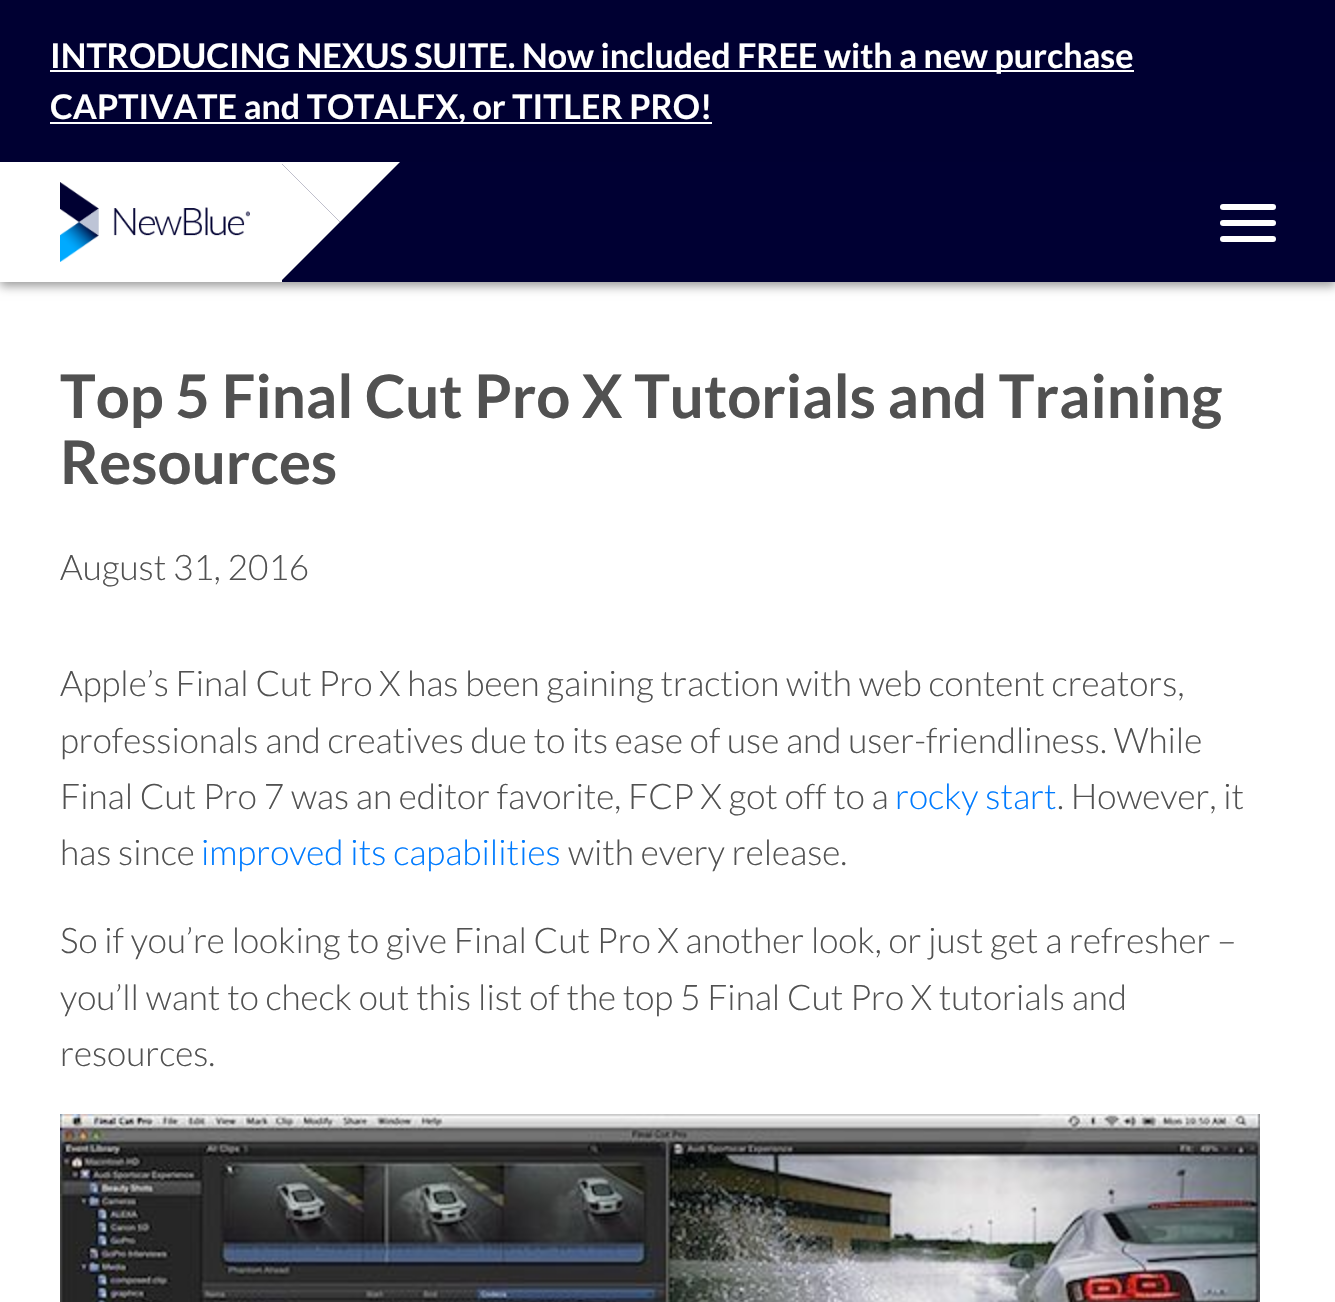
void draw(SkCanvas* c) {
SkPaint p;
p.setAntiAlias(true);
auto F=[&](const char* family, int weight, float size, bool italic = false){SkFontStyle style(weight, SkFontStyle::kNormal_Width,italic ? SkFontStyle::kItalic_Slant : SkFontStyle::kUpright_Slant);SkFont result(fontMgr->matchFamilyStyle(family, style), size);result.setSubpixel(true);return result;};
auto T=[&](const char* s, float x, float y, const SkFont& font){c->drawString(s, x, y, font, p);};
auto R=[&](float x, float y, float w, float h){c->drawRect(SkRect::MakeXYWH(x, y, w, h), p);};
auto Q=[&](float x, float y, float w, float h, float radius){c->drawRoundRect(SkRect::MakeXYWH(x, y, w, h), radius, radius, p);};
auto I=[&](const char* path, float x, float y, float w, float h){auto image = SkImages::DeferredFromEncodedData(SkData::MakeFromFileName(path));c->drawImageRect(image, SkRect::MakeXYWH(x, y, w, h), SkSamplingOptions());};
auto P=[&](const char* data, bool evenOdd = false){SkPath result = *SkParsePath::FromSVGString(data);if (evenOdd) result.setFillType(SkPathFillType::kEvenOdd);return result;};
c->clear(0xffffffff);
p.setColor(0x66000000);
p.setMaskFilter(SkMaskFilter::MakeBlur(kNormal_SkBlurStyle, 5));
c->drawRect(SkRect::MakeXYWH(0,166,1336,120),p);
p.setMaskFilter(nullptr);
p.setColor(0xff000032);
R(0,0,1335,162);
p.setColor(0xffffffff);
R(50,70,1084,2);
auto f1 = F("Lato",700,34);
T("INTRODUCING NEXUS SUITE. Now included FREE with a new purchase",50,68,f1);
R(50,122,662,2);
T("CAPTIVATE and TOTALFX, or TITLER PRO!",50,119,f1);
p.setColor(0xff000033);
R(282,162,1053,120);
p.setColor(0xffffffff);
R(0,162,282,120);
I("1.png",60,182,190,80);
c->drawPath(P("M280 162h120l-60 60z"),p);
c->drawPath(P("M280 282v-120l60 60z"),p);
Q(1220,204,56,6,3);
Q(1220,220,56,6,3);
Q(1220,236,56,6,3);
auto f2 = F("Lato",700,60);
p.setColor(0xff515151);
T("Top 5 Final Cut Pro X Tutorials and Training",60,418,f2);
T("Resources",60,484,f2);
auto f3 = F("Lato",300,35.2);
T("August 31, 2016",60,580,f3);
T("Apple’s Final Cut Pro X has been gaining traction with web content creators,",60,696,f3);
T("professionals and creatives due to its ease of use and user-friendliness. While",60,753,f3);
T("Final Cut Pro 7 was an editor favorite, FCP X got off to a",60,809,f3);
p.setColor(0xff007bff);
T("rocky start",895,809,f3);
p.setColor(0xff515151);
T(". However, it",1057,809,f3);
T("has since",60,865,f3);
p.setColor(0xff007bff);
T("improved its capabilities",201,865,f3);
p.setColor(0xff515151);
T("with every release.",568,865,f3);
T("So if you’re looking to give Final Cut Pro X another look, or just get a refresher –",60,953,f3);
T("you’ll want to check out this list of the top 5 Final Cut Pro X tutorials and",60,1010,f3);
T("resources.",60,1066,f3);
I("2.png",60,1114,1200,188);
}
